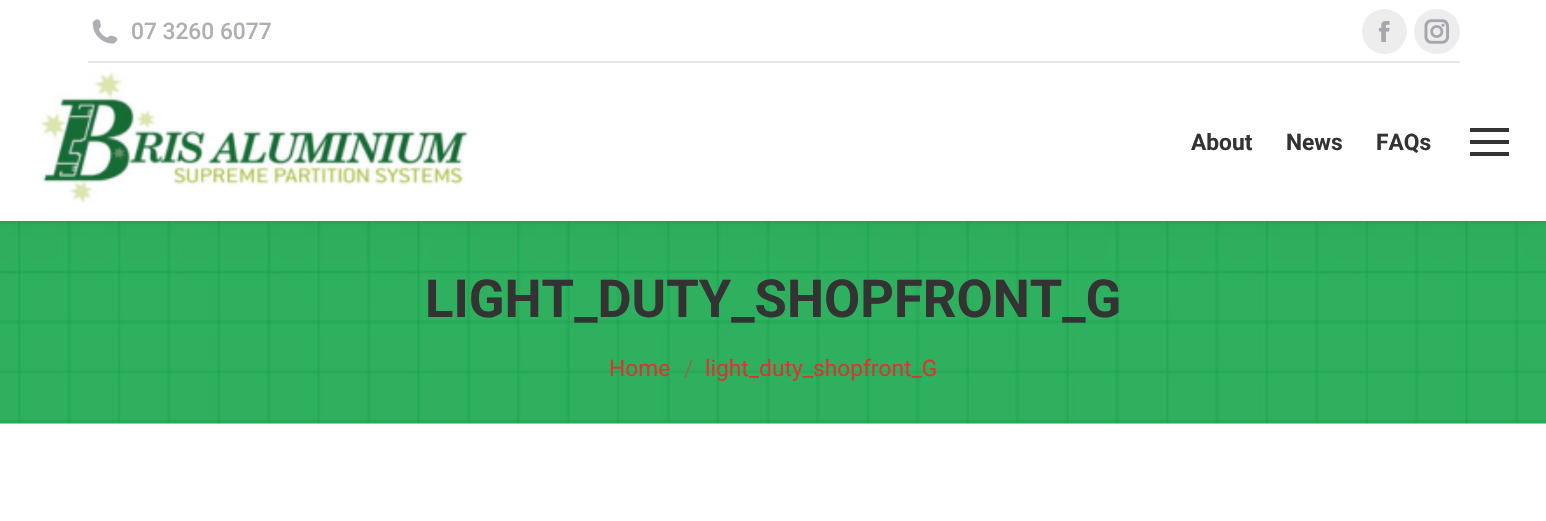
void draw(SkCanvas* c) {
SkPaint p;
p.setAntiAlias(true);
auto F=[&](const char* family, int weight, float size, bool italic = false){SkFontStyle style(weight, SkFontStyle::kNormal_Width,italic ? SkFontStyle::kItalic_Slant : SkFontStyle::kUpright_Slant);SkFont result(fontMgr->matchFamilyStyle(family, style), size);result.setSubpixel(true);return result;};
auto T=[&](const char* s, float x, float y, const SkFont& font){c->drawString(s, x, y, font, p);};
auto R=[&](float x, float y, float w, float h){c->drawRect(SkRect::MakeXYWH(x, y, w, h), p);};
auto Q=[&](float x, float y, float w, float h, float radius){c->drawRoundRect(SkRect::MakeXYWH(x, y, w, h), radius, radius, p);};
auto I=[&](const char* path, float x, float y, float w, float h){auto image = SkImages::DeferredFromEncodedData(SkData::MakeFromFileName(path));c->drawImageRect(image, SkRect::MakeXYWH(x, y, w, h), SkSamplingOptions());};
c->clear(0xffffffff);
p.setColor(0xfff7f7f7);
R(0,423,1546,1);
I("5.png",0,221,1546,203);
p.setColor(0x12000000);
p.setMaskFilter(SkMaskFilter::MakeBlur(kNormal_SkBlurStyle, 13));
c->drawRect(SkRect::MakeXYWH(-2,-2,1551,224),p);
p.setMaskFilter(nullptr);
p.setColor(0xffffffff);
R(0,0,1546,221);
I("1.png",92,19,26,25);
auto f1 = F("Roboto",500,22.75);
p.setColor(0xffaeafb5);
T("07 3260 6077",131,39,f1);
p.setColor(0xffededee);
c->drawCircle(1384.5,31.5,22.5,p);
I("2.png",1379,21,11,21);
Q(1414,9,46,45,22.5);
I("3.png",1424,19,25,25);
p.setColor(0xffe7e7e7);
R(88,61,1372,2);
I("4.png",40,72,432,132);
auto f2 = F("Roboto",700,22.75);
p.setColor(0xff333333);
T("About",1191,150,f2);
T("News",1286,150,f2);
T("FAQs",1376,150,f2);
R(1470,128,39,4);
R(1470,140,39,4);
R(1470,152,39,4);
auto f3 = F("Roboto",700,52.5);
T("LIGHT_DUTY_SHOPFRONT_G",425,317,f3);
auto f4 = F("Roboto",400,22.75);
p.setColor(0xffdd3333);
T("Home",609,376,f4);
p.setColor(0xff857148);
T("/",684,376,f4);
p.setColor(0xffdd3333);
T("light_duty_shopfront_G",705,376,f4);
}
